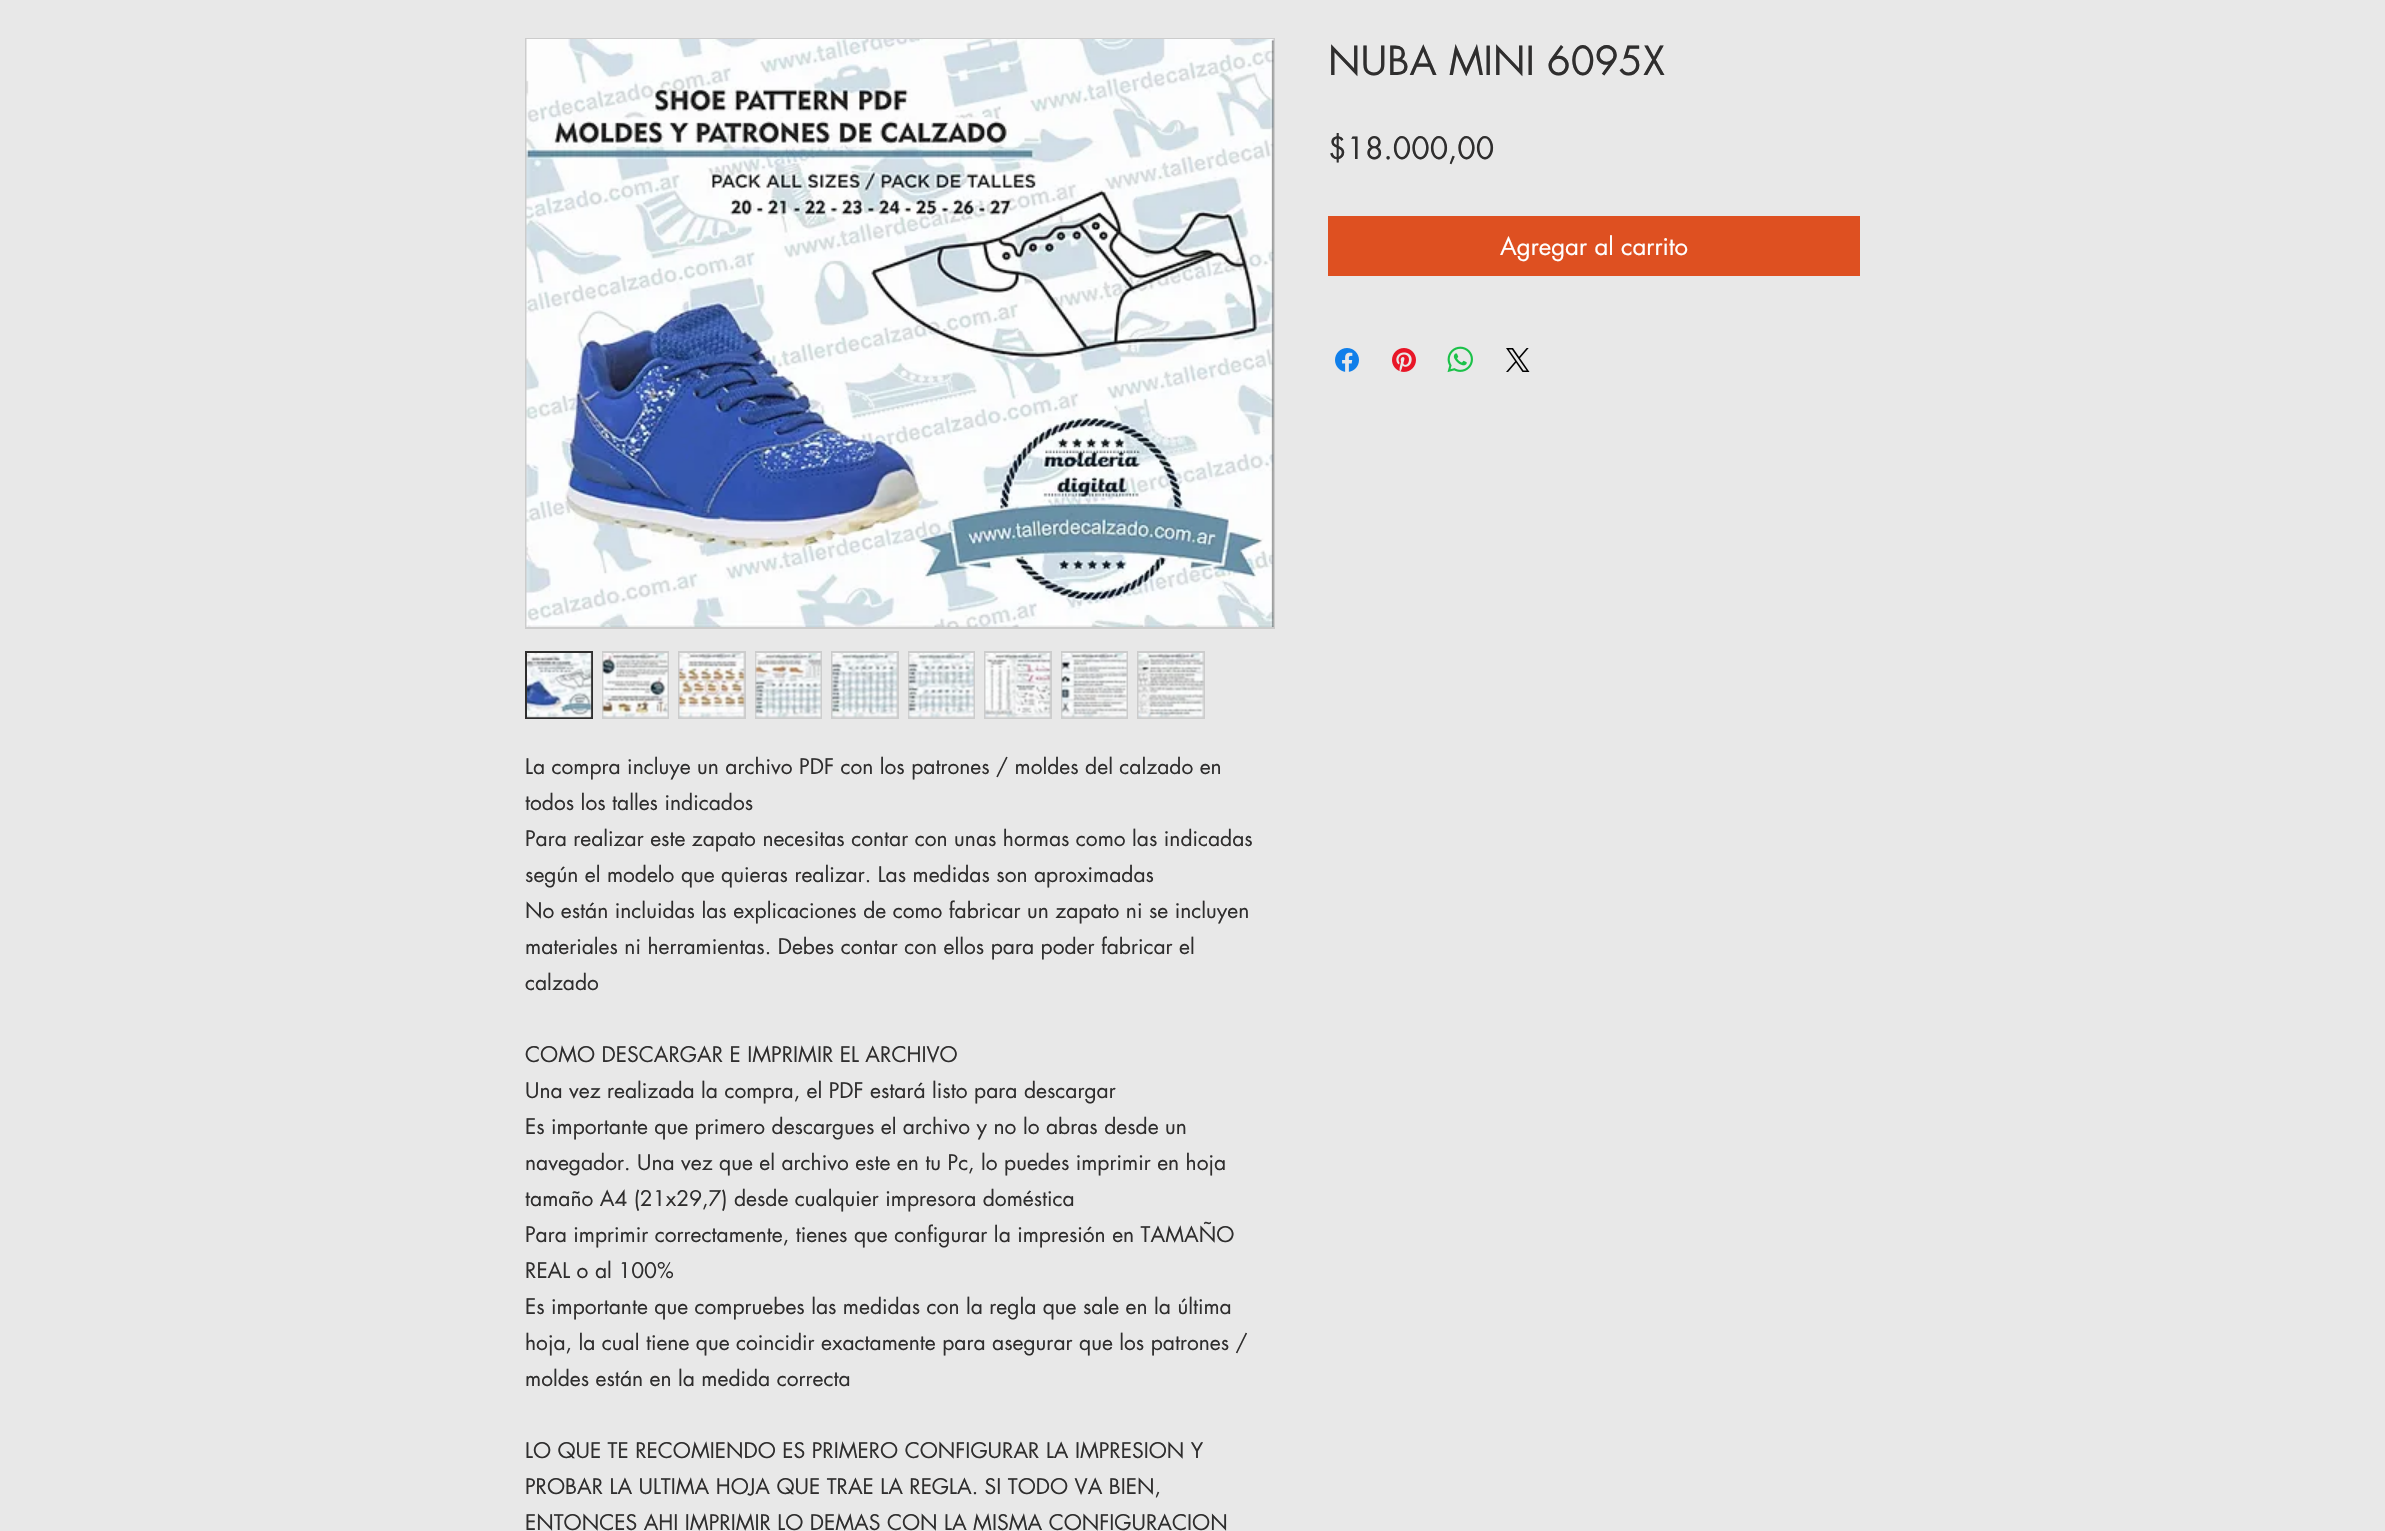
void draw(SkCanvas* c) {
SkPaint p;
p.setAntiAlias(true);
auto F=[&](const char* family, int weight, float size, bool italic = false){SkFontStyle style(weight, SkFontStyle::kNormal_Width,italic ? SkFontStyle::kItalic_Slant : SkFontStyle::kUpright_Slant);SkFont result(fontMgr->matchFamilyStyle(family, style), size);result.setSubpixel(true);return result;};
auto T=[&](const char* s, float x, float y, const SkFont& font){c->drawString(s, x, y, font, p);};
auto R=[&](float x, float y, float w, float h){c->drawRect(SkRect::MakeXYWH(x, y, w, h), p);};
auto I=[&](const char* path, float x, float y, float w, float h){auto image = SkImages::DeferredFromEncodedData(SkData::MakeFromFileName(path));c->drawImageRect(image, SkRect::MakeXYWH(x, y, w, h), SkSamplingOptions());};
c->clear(0xffe8e8e8);
auto f1 = F("futura",400,39);
p.setColor(0xff2f2e2e);
T("NUBA MINI 6095X",1328,75,f1);
auto f2 = F("futura",400,30);
T("$18.000,00",1328,159,f2);
p.setColor(0xffde5021);
R(1328,216,532,60);
auto f3 = F("futura",400,24);
p.setColor(0xffffffff);
T("Agregar al carrito",1500,255,f3);
I("1.png",1335,348,24,24);
I("2.png",1392,348,24,24);
I("3.png",1447,346,26,27);
I("4.png",1506,348,24,24);
p.setStroke(true);
p.setStrokeWidth(2);
p.setColor(0xffcccccc);
c->drawRect(SkRect::MakeXYWH(526,39,748,589),p);
I("5.png",526,39,748,588);
p.setStroke(false);
c->drawRect(SkRect::MakeXYWH(526,652,66,66),p);
p.setStroke(true);
p.setColor(0xff2f2e2e);
c->drawRect(SkRect::MakeXYWH(526,652,66,66),p);
I("6.png",527,653,65,65);
p.setStroke(false);
p.setColor(0xffcccccc);
R(602,651,67,68);
I("7.png",602,653,66,65);
R(678,651,68,68);
I("8.png",679,653,66,65);
R(755,651,67,68);
I("9.png",755,653,66,65);
R(831,651,68,68);
I("10.png",832,653,66,65);
R(908,651,67,68);
I("11.png",908,653,66,65);
R(984,651,68,68);
I("12.png",985,653,66,65);
R(1061,651,67,68);
I("13.png",1061,653,66,65);
R(1137,651,68,68);
I("14.png",1138,653,66,65);
auto f4 = F("futura",400,21);
p.setColor(0xff2f2e2e);
T("La compra incluye un archivo PDF con los patrones / moldes del calzado en",525,774,f4);
T("todos los talles indicados",525,810,f4);
T("Para realizar este zapato necesitas contar con unas hormas como las indicadas",525,846,f4);
T("según el modelo que quieras realizar. Las medidas son aproximadas",525,882,f4);
T("No están incluidas las explicaciones de como fabricar un zapato ni se incluyen",525,918,f4);
T("materiales ni herramientas. Debes contar con ellos para poder fabricar el",525,954,f4);
T("calzado",525,990,f4);
T("COMO DESCARGAR E IMPRIMIR EL ARCHIVO",525,1062,f4);
T("Una vez realizada la compra, el PDF estará listo para descargar",525,1098,f4);
T("Es importante que primero descargues el archivo y no lo abras desde un",525,1134,f4);
T("navegador. Una vez que el archivo este en tu Pc, lo puedes imprimir en hoja",525,1170,f4);
T("tamaño A4 (21x29,7) desde cualquier impresora doméstica",525,1206,f4);
T("Para imprimir correctamente, tienes que configurar la impresión en TAMAÑO",525,1242,f4);
T("REAL o al 100%",525,1278,f4);
T("Es importante que compruebes las medidas con la regla que sale en la última",525,1314,f4);
T("hoja, la cual tiene que coincidir exactamente para asegurar que los patrones /",525,1350,f4);
T("moldes están en la medida correcta",525,1386,f4);
T("LO QUE TE RECOMIENDO ES PRIMERO CONFIGURAR LA IMPRESION Y",525,1458,f4);
T("PROBAR LA ULTIMA HOJA QUE TRAE LA REGLA. SI TODO VA BIEN,",525,1494,f4);
T("ENTONCES AHI IMPRIMIR LO DEMAS CON LA MISMA CONFIGURACION",525,1530,f4);
}
